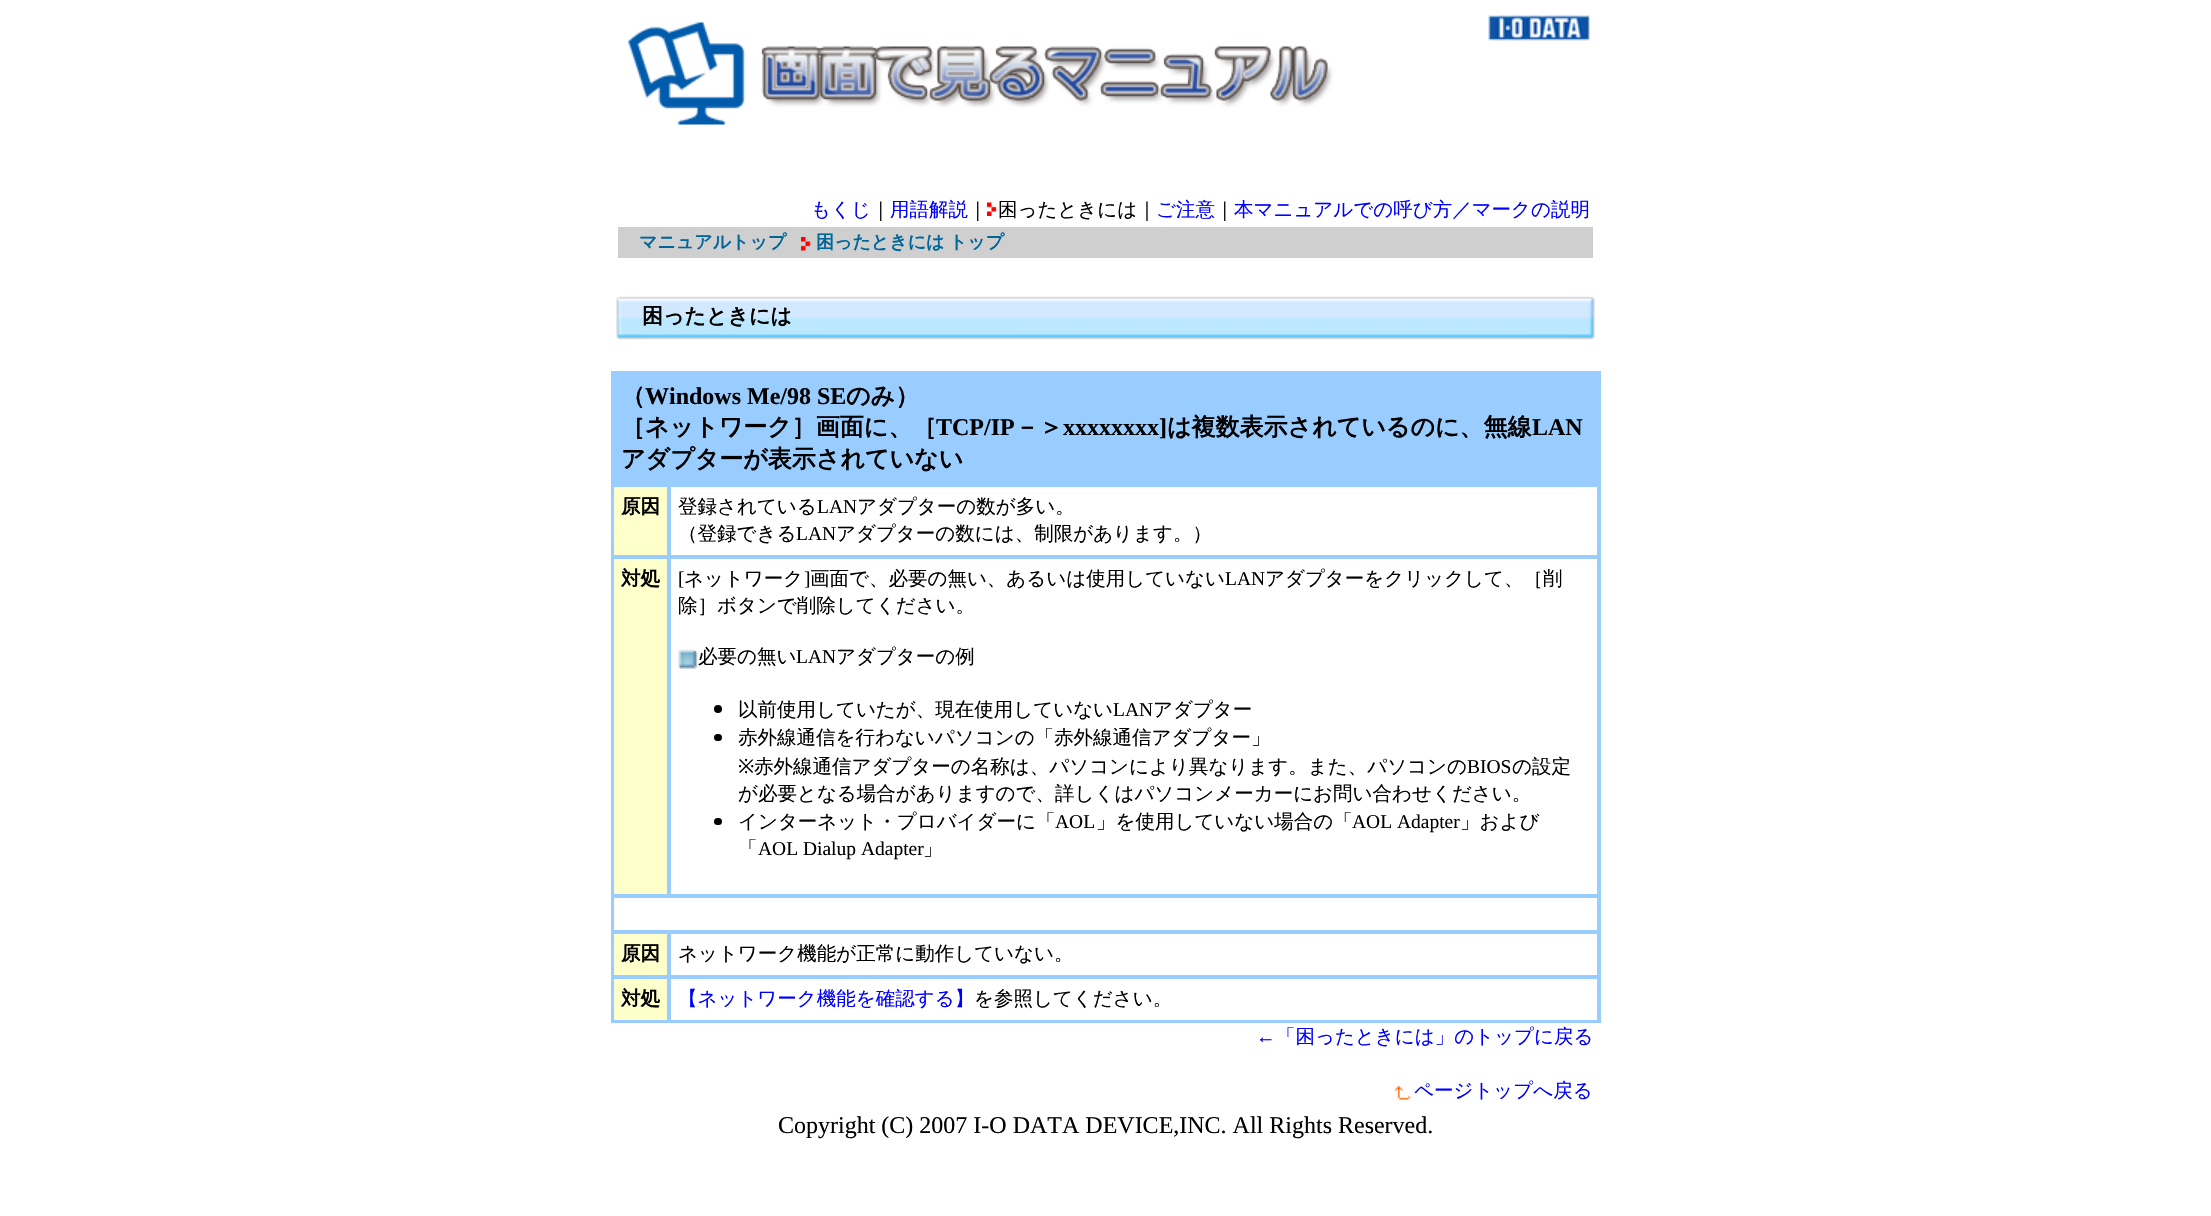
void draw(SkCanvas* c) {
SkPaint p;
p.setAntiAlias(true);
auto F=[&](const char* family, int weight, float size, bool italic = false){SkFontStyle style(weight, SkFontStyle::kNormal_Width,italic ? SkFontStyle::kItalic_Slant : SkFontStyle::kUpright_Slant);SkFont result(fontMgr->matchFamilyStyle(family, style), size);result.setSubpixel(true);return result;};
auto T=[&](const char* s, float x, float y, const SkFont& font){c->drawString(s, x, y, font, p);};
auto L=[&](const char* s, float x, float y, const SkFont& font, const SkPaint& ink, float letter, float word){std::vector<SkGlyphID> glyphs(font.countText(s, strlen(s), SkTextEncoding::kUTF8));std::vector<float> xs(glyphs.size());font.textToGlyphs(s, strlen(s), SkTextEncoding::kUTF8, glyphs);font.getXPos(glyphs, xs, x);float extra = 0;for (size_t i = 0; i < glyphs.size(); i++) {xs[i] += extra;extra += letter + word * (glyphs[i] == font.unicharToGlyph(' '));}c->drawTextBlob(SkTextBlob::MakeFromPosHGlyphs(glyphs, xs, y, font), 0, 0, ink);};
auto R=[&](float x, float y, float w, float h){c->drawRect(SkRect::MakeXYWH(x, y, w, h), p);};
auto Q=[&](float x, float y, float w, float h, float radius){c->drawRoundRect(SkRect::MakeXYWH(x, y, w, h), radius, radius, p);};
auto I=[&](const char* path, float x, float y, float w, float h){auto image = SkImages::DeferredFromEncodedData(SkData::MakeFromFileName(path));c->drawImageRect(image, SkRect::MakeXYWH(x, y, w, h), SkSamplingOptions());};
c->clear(0xffffffff);
I("1.png",628,22,705,103);
I("2.png",1488,15,102,26);
auto f1 = F("WenQuanYi Zen Hei",500,19.5);
p.setColor(0xff0000ff);
T("もくじ",811,216,f1);
p.setColor(0xff000000);
T("｜",871,216,f1);
p.setColor(0xff0000ff);
T("用語解説",890,216,f1);
p.setColor(0xff000000);
T("｜",968,216,f1);
I("3.png",987,202,10,14);
T("困ったときには｜",998,216,f1);
p.setColor(0xff0000ff);
T("ご注意",1156,216,f1);
p.setColor(0xff000000);
T("｜",1215,216,f1);
p.setColor(0xff0000ff);
T("本マニュアルでの呼び方／マークの説明",1234,216,f1);
p.setColor(0xffcfcfcf);
R(618,227,975,31);
auto f2 = F("WenQuanYi Zen Hei",700,18);
p.setColor(0xff006699);
T("マニュアルトップ",639,248,f2);
I("4.png",801,237,10,14);
L("困ったときには トップ",816,248,f2,p,0,-1);
I("5.png",616,296,26,44);
I("6.png",642,296,927,44);
auto f3 = F("WenQuanYi Zen Hei",700,21);
p.setColor(0xff000000);
T("困ったときには",642,323,f3);
I("7.png",1569,296,26,44);
p.setStroke(true);
p.setStrokeWidth(2);
p.setColor(0xff99ccff);
c->drawRect(SkRect::MakeXYWH(612,372,988,650),p);
p.setStroke(false);
R(613,373,986,112);
auto f4 = F("WenQuanYi Zen Hei",700,24);
p.setColor(0xff000000);
T("（",621,404,f4);
auto f5 = F("Liberation Serif",700,24);
T("Windows Me/98 SE",645,404,f5);
T("のみ）",846,404,f4);
T("［ネットワーク］画面に、［",621,435,f4);
T("TCP/IP",936,435,f5);
T("－＞",1015,435,f4);
T("xxxxxxxx]",1063,435,f5);
T("は複数表示されているのに、無線",1167,435,f4);
T("LAN",1532,435,f5);
T("アダプターが表示されていない",621,467,f4);
p.setColor(0xffffffcc);
c->drawRect(SkRect::MakeXYWH(613,486,55,70),p);
p.setStroke(true);
p.setColor(0xff99ccff);
c->drawRect(SkRect::MakeXYWH(613,486,55,70),p);
auto f6 = F("WenQuanYi Zen Hei",700,19.5);
p.setStroke(false);
p.setColor(0xff000000);
T("原因",621,513,f6);
p.setStroke(true);
p.setColor(0xff99ccff);
c->drawRect(SkRect::MakeXYWH(670,486,928,70),p);
p.setStroke(false);
p.setColor(0xff000000);
T("登録されている",678,513,f1);
auto f7 = F("Liberation Serif",400,19.5);
T("LAN",817,513,f7);
T("アダプターの数が多い。",857,513,f1);
T("（登録できる",678,540,f1);
T("LAN",796,540,f7);
T("アダプターの数には、制限があります。）",836,540,f1);
p.setColor(0xffffffcc);
c->drawRect(SkRect::MakeXYWH(613,558,55,337),p);
p.setStroke(true);
p.setColor(0xff99ccff);
c->drawRect(SkRect::MakeXYWH(613,558,55,337),p);
p.setStroke(false);
p.setColor(0xff000000);
T("対処",621,585,f6);
p.setStroke(true);
p.setColor(0xff99ccff);
c->drawRect(SkRect::MakeXYWH(670,558,928,337),p);
p.setStroke(false);
p.setColor(0xff000000);
T("[",678,585,f7);
T("ネットワーク",684,585,f1);
T("]",804,585,f7);
T("画面で、必要の無い、あるいは使用していない",810,585,f1);
T("LAN",1225,585,f7);
T("アダプターをクリックして、［削",1265,585,f1);
T("除］ボタンで削除してください。",678,612,f1);
I("8.png",678,649,20,20);
T("必要の無い",698,663,f1);
T("LAN",796,663,f7);
T("アダプターの例",836,663,f1);
c->drawCircle(718,709,4,p);
T("以前使用していたが、現在使用していない",738,716,f1);
T("LAN",1113,716,f7);
T("アダプター",1153,716,f1);
Q(714,734,8,7,3.5);
T("赤外線通信を行わないパソコンの「赤外線通信アダプター」",738,744,f1);
auto f8 = F("Noto Sans",400,19.5);
T("※",738,773,f8);
T("赤外線通信アダプターの名称は、パソコンにより異なります。また、パソコンの",754,773,f1);
T("BIOS",1467,773,f7);
T("の設定",1512,773,f1);
T("が必要となる場合がありますので、詳しくはパソコンメーカーにお問い合わせください。",738,800,f1);
Q(714,818,8,7,3.5);
T("インターネット・プロバイダーに「",738,828,f1);
T("AOL",1055,828,f7);
T("」を使用していない場合の「",1096,828,f1);
T("AOL Adapter",1352,828,f7);
T("」および",1460,828,f1);
T("「",738,855,f1);
T("AOL Dialup Adapter",758,855,f7);
T("」",923,855,f1);
p.setStroke(true);
p.setColor(0xff99ccff);
c->drawRect(SkRect::MakeXYWH(613,897,985,34),p);
p.setStroke(false);
p.setColor(0xffffffcc);
c->drawRect(SkRect::MakeXYWH(613,933,55,43),p);
p.setStroke(true);
p.setColor(0xff99ccff);
c->drawRect(SkRect::MakeXYWH(613,933,55,43),p);
p.setStroke(false);
p.setColor(0xff000000);
T("原因",621,960,f6);
p.setStroke(true);
p.setColor(0xff99ccff);
c->drawRect(SkRect::MakeXYWH(670,933,928,43),p);
p.setStroke(false);
p.setColor(0xff000000);
T("ネットワーク機能が正常に動作していない。",678,960,f1);
p.setColor(0xffffffcc);
c->drawRect(SkRect::MakeXYWH(613,978,55,43),p);
p.setStroke(true);
p.setColor(0xff99ccff);
c->drawRect(SkRect::MakeXYWH(613,978,55,43),p);
p.setStroke(false);
p.setColor(0xff000000);
T("対処",621,1005,f6);
p.setStroke(true);
p.setColor(0xff99ccff);
c->drawRect(SkRect::MakeXYWH(670,978,928,43),p);
p.setStroke(false);
p.setColor(0xff0000ff);
T("【ネットワーク機能を確認する】",678,1005,f1);
p.setColor(0xff000000);
T("を参照してください。",974,1005,f1);
p.setColor(0xff0000ff);
T("←",1256,1043,f7);
T("「困ったときには」のトップに戻る",1276,1043,f1);
I("9.png",1394,1085,17,15);
T("ページトップへ戻る",1414,1097,f1);
auto f9 = F("Liberation Serif",400,24);
p.setColor(0xff000000);
T("Copyright (C) 2007 I-O DATA DEVICE,INC. All Rights Reserved.",778,1133,f9);
}
